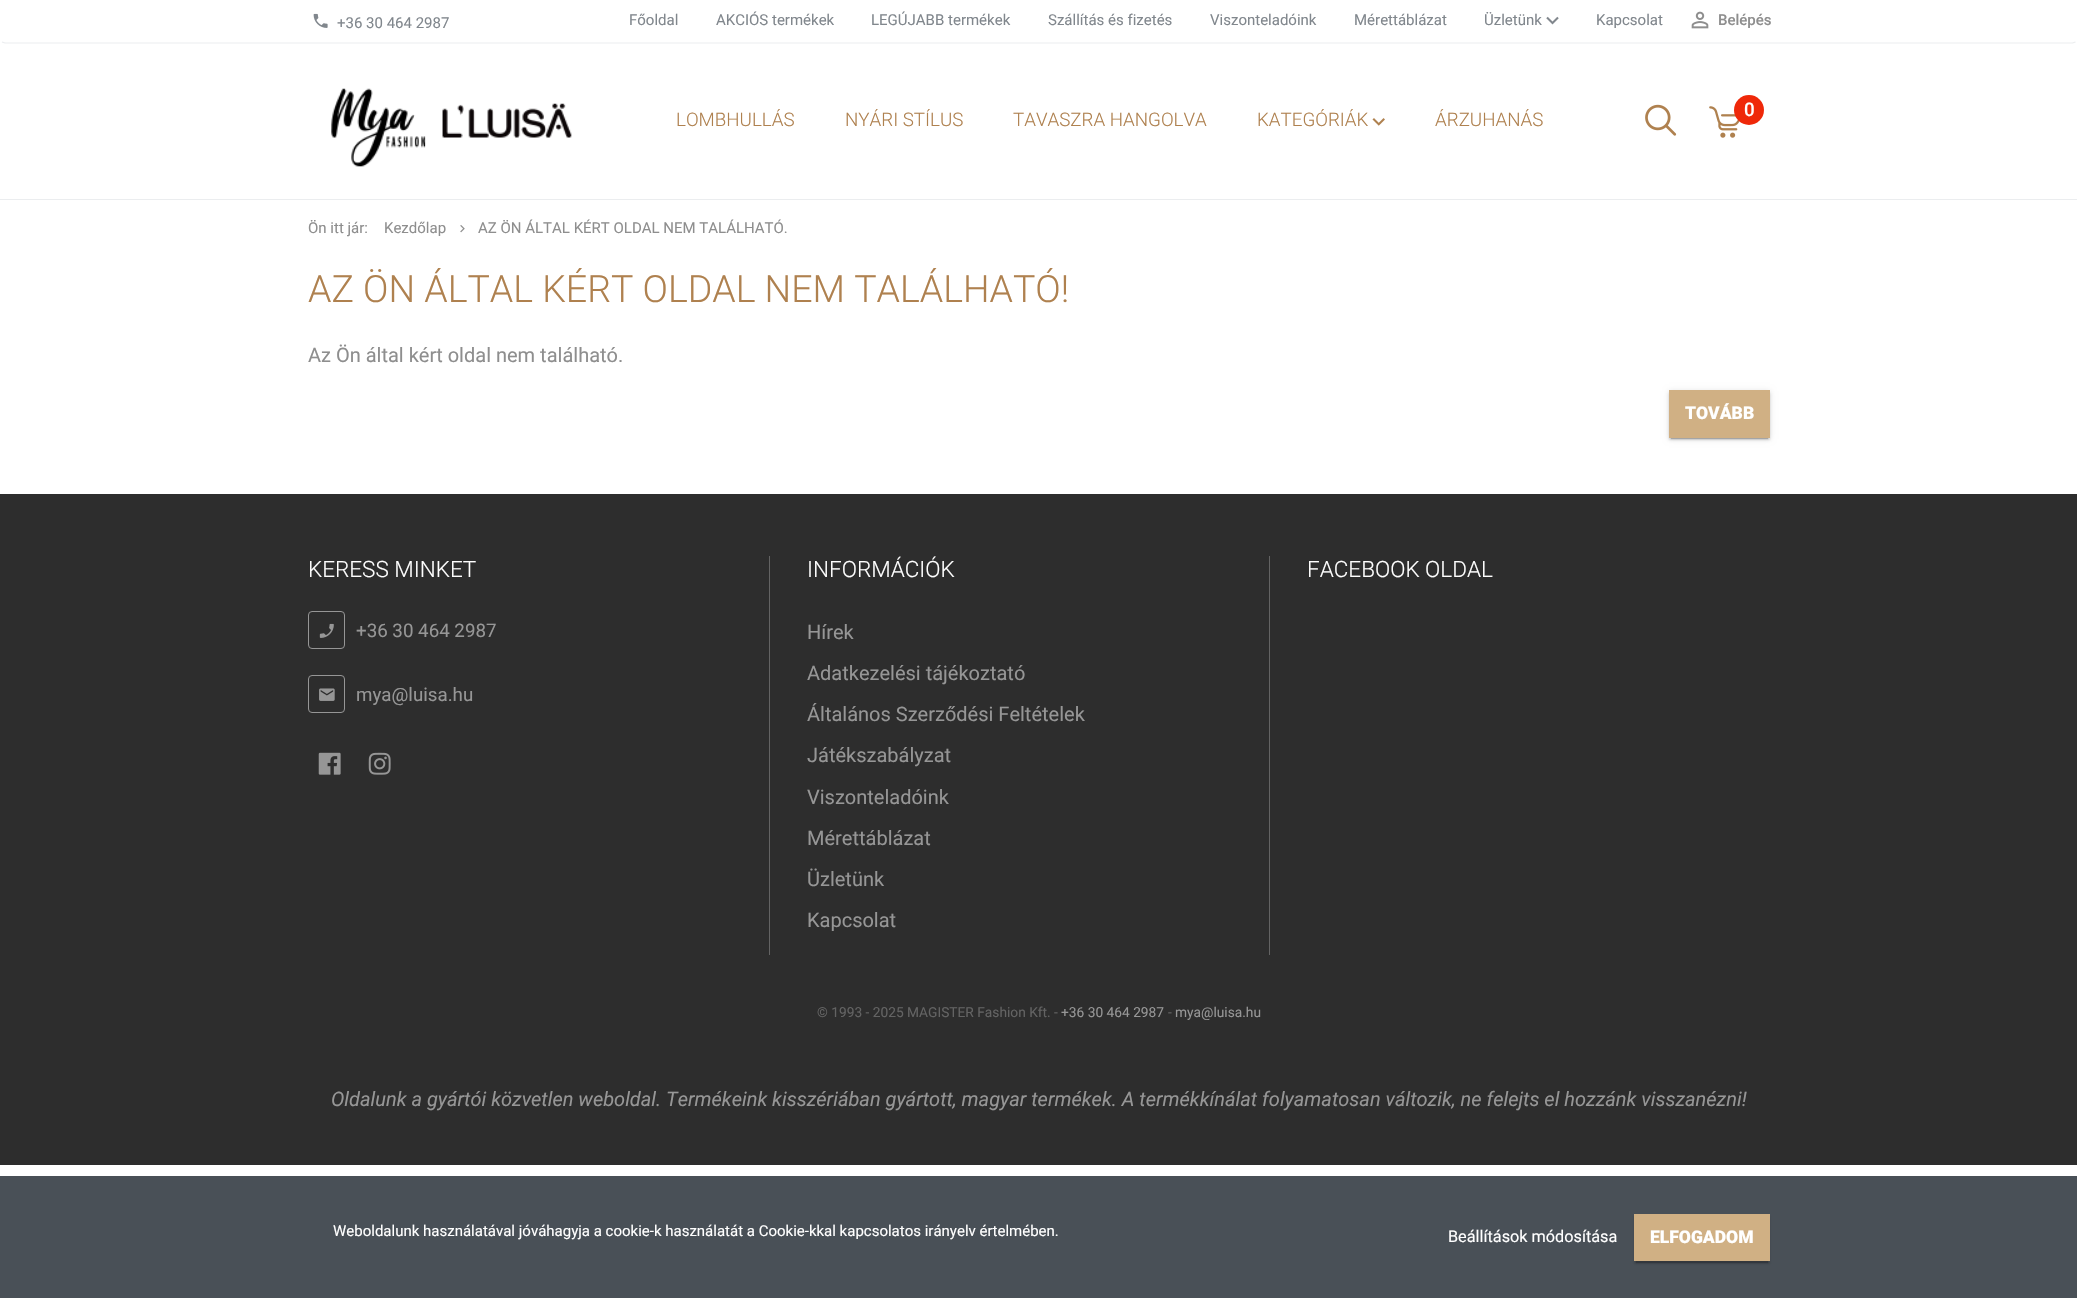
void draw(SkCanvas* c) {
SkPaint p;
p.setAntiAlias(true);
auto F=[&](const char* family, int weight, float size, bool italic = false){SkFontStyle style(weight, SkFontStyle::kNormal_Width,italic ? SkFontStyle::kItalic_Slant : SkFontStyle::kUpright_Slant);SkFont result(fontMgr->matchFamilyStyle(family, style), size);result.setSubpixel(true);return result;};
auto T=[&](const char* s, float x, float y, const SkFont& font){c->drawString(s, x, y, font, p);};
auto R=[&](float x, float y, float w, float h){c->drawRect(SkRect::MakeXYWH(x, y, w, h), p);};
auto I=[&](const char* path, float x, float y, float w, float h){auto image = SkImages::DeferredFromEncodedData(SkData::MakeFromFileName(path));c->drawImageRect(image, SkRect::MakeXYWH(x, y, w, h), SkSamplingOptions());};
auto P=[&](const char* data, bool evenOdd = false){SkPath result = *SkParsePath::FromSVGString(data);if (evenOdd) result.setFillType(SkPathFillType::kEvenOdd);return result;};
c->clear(0xffffffff);
p.setStroke(true);
p.setStrokeWidth(1.2);
p.setColor(0xffebedef);
c->drawPath(P("M2075.5 42l-3 1h-2067.5l-3-1"),p);
I("1.png",313,13,15,15);
auto f1 = F("Roboto",400,15);
p.setStroke(false);
p.setColor(0xff81878d);
T("+36 30 464 2987",337,28,f1);
T("Főoldal",629,25,f1);
T("AKCIÓS termékek",716,25,f1);
T("LEGÚJABB termékek",871,25,f1);
T("Szállítás és fizetés",1048,25,f1);
T("Viszonteladóink",1210,25,f1);
T("Mérettáblázat",1354,25,f1);
T("Üzletünk",1484,25,f1);
I("2.png",1546,16,13,9);
T("Kapcsolat",1596,25,f1);
I("3.png",1691,11,18,18);
auto f2 = F("Roboto",500,15);
p.setColor(0xff8e8e8e);
T("Belépés",1718,25,f2);
p.setColor(0xffebedef);
R(0,199,2077,1);
I("4.png",331,88,241,79);
auto f3 = F("Roboto",300,18.75);
p.setColor(0xffaf814f);
T("LOMBHULLÁS",676,126,f3);
T("NYÁRI STÍLUS",845,126,f3);
T("TAVASZRA HANGOLVA",1013,126,f3);
T("KATEGÓRIÁK",1257,126,f3);
I("5.png",1372,118,13,8);
T("ÁRZUHANÁS",1435,126,f3);
I("6.png",1645,104,32,32);
I("7.png",1709,106,31,32);
p.setColor(0xffef2809);
c->drawCircle(1749,110,15,p);
auto f4 = F("Roboto",500,18.75);
p.setColor(0xffffffff);
T("0",1744,116,f4);
p.setColor(0xff8e8e8e);
T("Ön itt jár:",308,233,f1);
T("Kezdőlap",384,233,f1);
I("8.png",460,225,5,8);
T("AZ ÖN ÁLTAL KÉRT OLDAL NEM TALÁLHATÓ.",478,233,f1);
auto f5 = F("Roboto",300,37.5);
p.setColor(0xffaf814f);
T("AZ ÖN ÁLTAL KÉRT OLDAL NEM TALÁLHATÓ!",308,302,f5);
auto f6 = F("Roboto",400,20);
p.setColor(0xff8e8e8e);
T("Az Ön által kért oldal nem található.",308,362,f6);
p.setColor(0x33000000);
p.setMaskFilter(SkMaskFilter::MakeBlur(kNormal_SkBlurStyle, .5));
c->drawRect(SkRect::MakeXYWH(1671,396,97,43),p);
p.setMaskFilter(nullptr);
p.setColor(0x1f000000);
p.setMaskFilter(SkMaskFilter::MakeBlur(kNormal_SkBlurStyle, 3));
c->drawRect(SkRect::MakeXYWH(1669,391,101,48),p);
p.setMaskFilter(nullptr);
p.setColor(0x24000000);
p.setMaskFilter(SkMaskFilter::MakeBlur(kNormal_SkBlurStyle, 1));
c->drawRect(SkRect::MakeXYWH(1669,393,101,47),p);
p.setMaskFilter(nullptr);
p.setColor(0xffd0b084);
R(1669,390,101,48);
auto f7 = F("Roboto",900,17.5);
p.setColor(0xffffffff);
T("TOVÁBB",1685,419,f7);
p.setColor(0xff2d2d2d);
R(0,494,2077,671);
p.setColor(0xff636363);
R(769,556,1,399);
auto f8 = F("Roboto",300,22.5);
p.setColor(0xffffffff);
T("KERESS MINKET",308,577,f8);
p.setStroke(true);
p.setStrokeWidth(1);
p.setColor(0xff969696);
c->drawRoundRect(SkRect::MakeXYWH(308.5,611.5,36,37),3.5,3.5,p);
I("9.png",319,623,15,15);
auto f9 = F("Roboto",400,18.75);
p.setStroke(false);
T("+36 30 464 2987",356,637,f9);
p.setStroke(true);
c->drawRoundRect(SkRect::MakeXYWH(308.5,675.5,36,37),3.5,3.5,p);
I("10.png",319,688,16,13);
p.setStroke(false);
T("mya@luisa.hu",356,701,f9);
I("11.png",318,752,23,23);
I("12.png",368,752,23,23);
p.setColor(0xff636363);
R(1269,556,1,399);
p.setColor(0xffffffff);
T("INFORMÁCIÓK",807,577,f8);
p.setColor(0xff969696);
T("Hírek",807,639,f6);
T("Adatkezelési tájékoztató",807,680,f6);
T("Általános Szerződési Feltételek",807,721,f6);
T("Játékszabályzat",807,762,f6);
T("Viszonteladóink",807,804,f6);
T("Mérettáblázat",807,845,f6);
T("Üzletünk",807,886,f6);
T("Kapcsolat",807,927,f6);
p.setColor(0xffffffff);
T("FACEBOOK OLDAL",1307,577,f8);
auto f10 = F("Roboto",400,13.75);
p.setColor(0xff636363);
T("© 1993 - 2025 MAGISTER Fashion Kft. -",817,1017,f10);
p.setColor(0xff969696);
T("+36 30 464 2987",1061,1017,f10);
p.setColor(0xff636363);
T("-",1168,1017,f10);
p.setColor(0xff969696);
T("mya@luisa.hu",1175,1017,f10);
auto f11 = F("Roboto",400,20,true);
T("Oldalunk a gyártói közvetlen weboldal. Termékeink kisszériában gyártott, magyar termékek. A termékkínálat folyamatosan változik, ne felejts el hozzánk visszanézni!",331,1106,f11);
p.setColor(0xff495057);
R(0,1176,2077,122);
p.setColor(0xffffffff);
T("Weboldalunk használatával jóváhagyja a cookie-k használatát a Cookie-kkal kapcsolatos irányelv értelmében.",333,1236,f1);
auto f12 = F("Roboto",400,16.25);
T("Beállítások módosítása",1448,1242,f12);
p.setColor(0x33000000);
p.setMaskFilter(SkMaskFilter::MakeBlur(kNormal_SkBlurStyle, .5));
c->drawRect(SkRect::MakeXYWH(1636,1220,132,43),p);
p.setMaskFilter(nullptr);
p.setColor(0x24000000);
p.setMaskFilter(SkMaskFilter::MakeBlur(kNormal_SkBlurStyle, 1));
c->drawRect(SkRect::MakeXYWH(1634,1216,136,48),p);
p.setMaskFilter(nullptr);
p.setColor(0xffd0b084);
R(1634,1214,136,47);
p.setColor(0xffffffff);
T("ELFOGADOM",1650,1243,f7);
}
